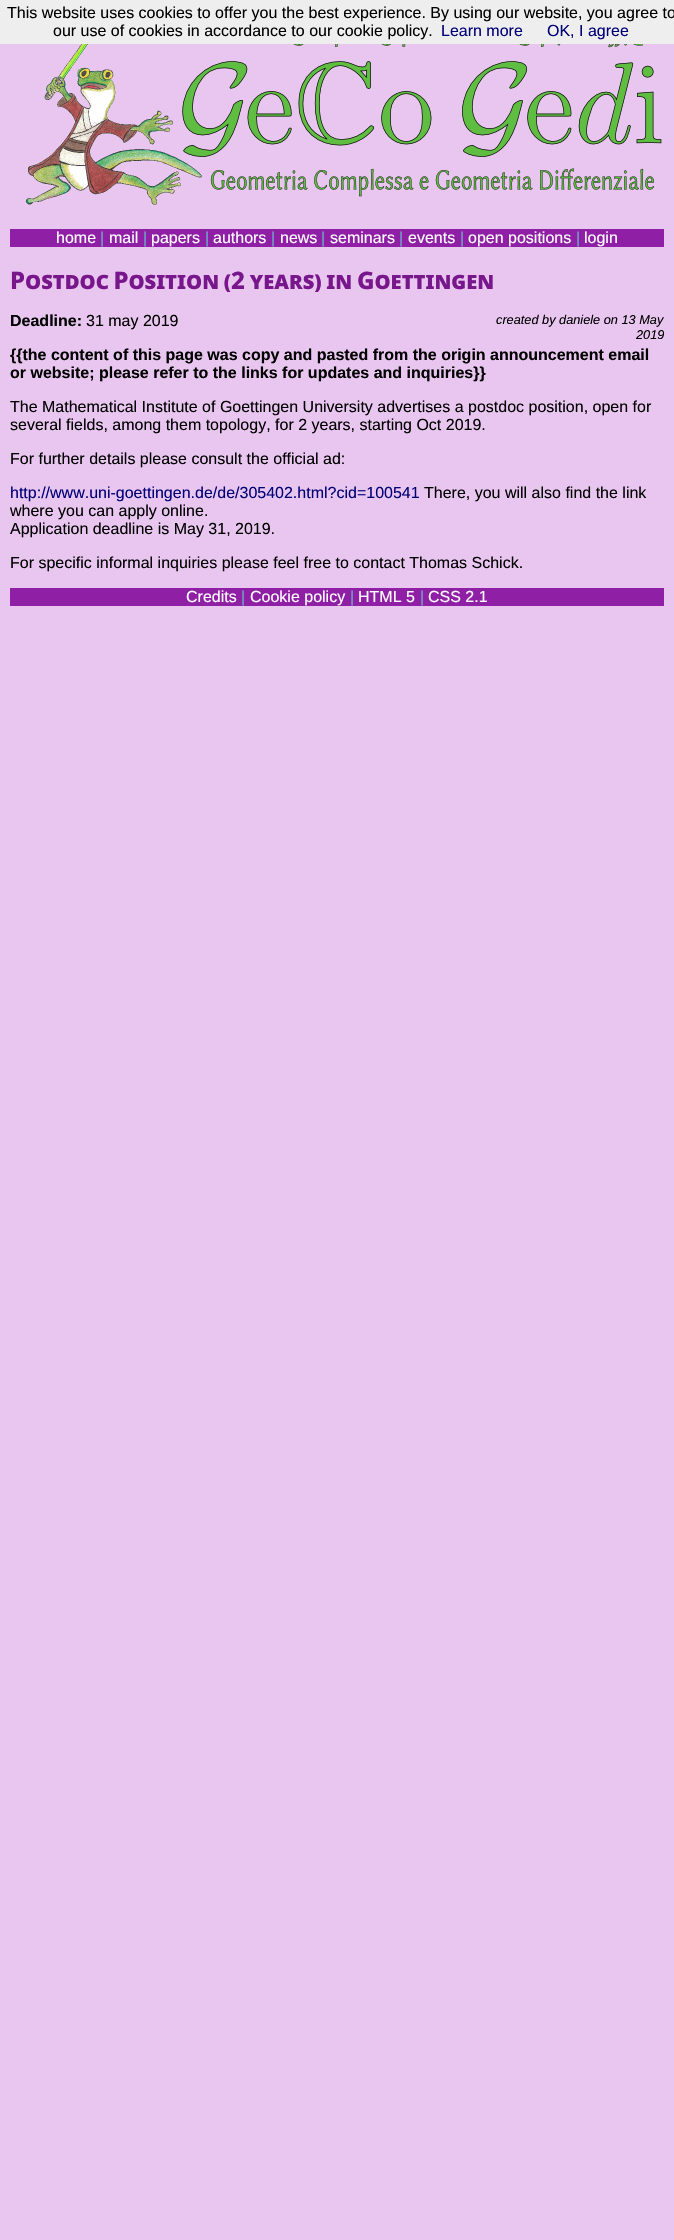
void draw(SkCanvas* c) {
SkPaint p;
p.setAntiAlias(true);
auto F=[&](const char* family, int weight, float size, bool italic = false){SkFontStyle style(weight, SkFontStyle::kNormal_Width,italic ? SkFontStyle::kItalic_Slant : SkFontStyle::kUpright_Slant);SkFont result(fontMgr->matchFamilyStyle(family, style), size);result.setSubpixel(true);return result;};
auto T=[&](const char* s, float x, float y, const SkFont& font){c->drawString(s, x, y, font, p);};
auto L=[&](const char* s, float x, float y, const SkFont& font, const SkPaint& ink, float letter, float word){std::vector<SkGlyphID> glyphs(font.countText(s, strlen(s), SkTextEncoding::kUTF8));std::vector<float> xs(glyphs.size());font.textToGlyphs(s, strlen(s), SkTextEncoding::kUTF8, glyphs);font.getXPos(glyphs, xs, x);float extra = 0;for (size_t i = 0; i < glyphs.size(); i++) {xs[i] += extra;extra += letter + word * (glyphs[i] == font.unicharToGlyph(' '));}c->drawTextBlob(SkTextBlob::MakeFromPosHGlyphs(glyphs, xs, y, font), 0, 0, ink);};
auto R=[&](float x, float y, float w, float h){c->drawRect(SkRect::MakeXYWH(x, y, w, h), p);};
auto I=[&](const char* path, float x, float y, float w, float h){auto image = SkImages::DeferredFromEncodedData(SkData::MakeFromFileName(path));c->drawImageRect(image, SkRect::MakeXYWH(x, y, w, h), SkSamplingOptions());};
c->clear(0xffe8c6ef);
p.setColor(0xffeeeeee);
R(0,0,674,44);
auto f1 = F("Liberation Sans",400,16);
p.setColor(0xff000000);
T("This website uses cookies to offer you the best experience. By using our website, you agree to",7,18,f1);
T("our use of cookies in accordance to our cookie policy.",53,36,f1);
p.setColor(0xff000077);
T("Learn more",441,36,f1);
T("OK, I agree",547,36,f1);
I("1.png",26,44,636,161);
p.setColor(0xff8f20a5);
R(10,229,654,18);
p.setColor(0xffffffff);
T("home",56,243,f1);
p.setColor(0xff6da7c9);
T("|",100,243,f1);
p.setColor(0xffffffff);
T("mail",109,243,f1);
p.setColor(0xff6da7c9);
T("|",143,243,f1);
p.setColor(0xffffffff);
T("papers",151,243,f1);
p.setColor(0xff6da7c9);
T("|",205,243,f1);
p.setColor(0xffffffff);
T("authors",213,243,f1);
p.setColor(0xff6da7c9);
T("|",271,243,f1);
p.setColor(0xffffffff);
T("news",280,243,f1);
p.setColor(0xff6da7c9);
T("|",321,243,f1);
p.setColor(0xffffffff);
T("seminars",330,243,f1);
p.setColor(0xff6da7c9);
T("|",399,243,f1);
p.setColor(0xffffffff);
T("events",408,243,f1);
p.setColor(0xff6da7c9);
T("|",460,243,f1);
p.setColor(0xffffffff);
T("open positions",468,243,f1);
p.setColor(0xff6da7c9);
T("|",576,243,f1);
p.setColor(0xffffffff);
T("login",584,243,f1);
auto f2 = F("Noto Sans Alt",800,24);
p.setColor(0xff78178b);
L("Postdoc Position (2 years) in Goettingen",10,289,f2,p,0,-1.5);
auto f3 = F("Liberation Sans",700,16);
p.setColor(0xff000000);
T("Deadline:",10,326,f3);
T("31 may 2019",86,326,f1);
auto f4 = F("Liberation Sans",400,12.75,true);
T("created by daniele on 13 May",496,324,f4);
T("2019",636,339,f4);
T("{{the content of this page was copy and pasted from the origin announcement email",10,360,f3);
T("or website; please refer to the links for updates and inquiries}}",10,378,f3);
T("The Mathematical Institute of Goettingen University advertises a postdoc position, open for",10,412,f1);
T("several fields, among them topology, for 2 years, starting Oct 2019.",10,430,f1);
T("For further details please consult the official ad:",10,464,f1);
p.setColor(0xff000077);
T("http://www.uni-goettingen.de/de/305402.html?cid=100541",10,498,f1);
p.setColor(0xff000000);
T("There, you will also find the link",424,498,f1);
T("where you can apply online.",10,516,f1);
T("Application deadline is May 31, 2019.",10,534,f1);
T("For specific informal inquiries please feel free to contact Thomas Schick.",10,568,f1);
p.setColor(0xff8f20a5);
R(10,588,654,18);
p.setColor(0xffffffff);
T("Credits",186,602,f1);
p.setColor(0xff6da7c9);
T("|",241,602,f1);
p.setColor(0xffffffff);
T("Cookie policy",250,602,f1);
p.setColor(0xff6da7c9);
T("|",350,602,f1);
p.setColor(0xffffffff);
T("HTML 5",358,602,f1);
p.setColor(0xff6da7c9);
T("|",420,602,f1);
p.setColor(0xffffffff);
T("CSS 2.1",428,602,f1);
}
